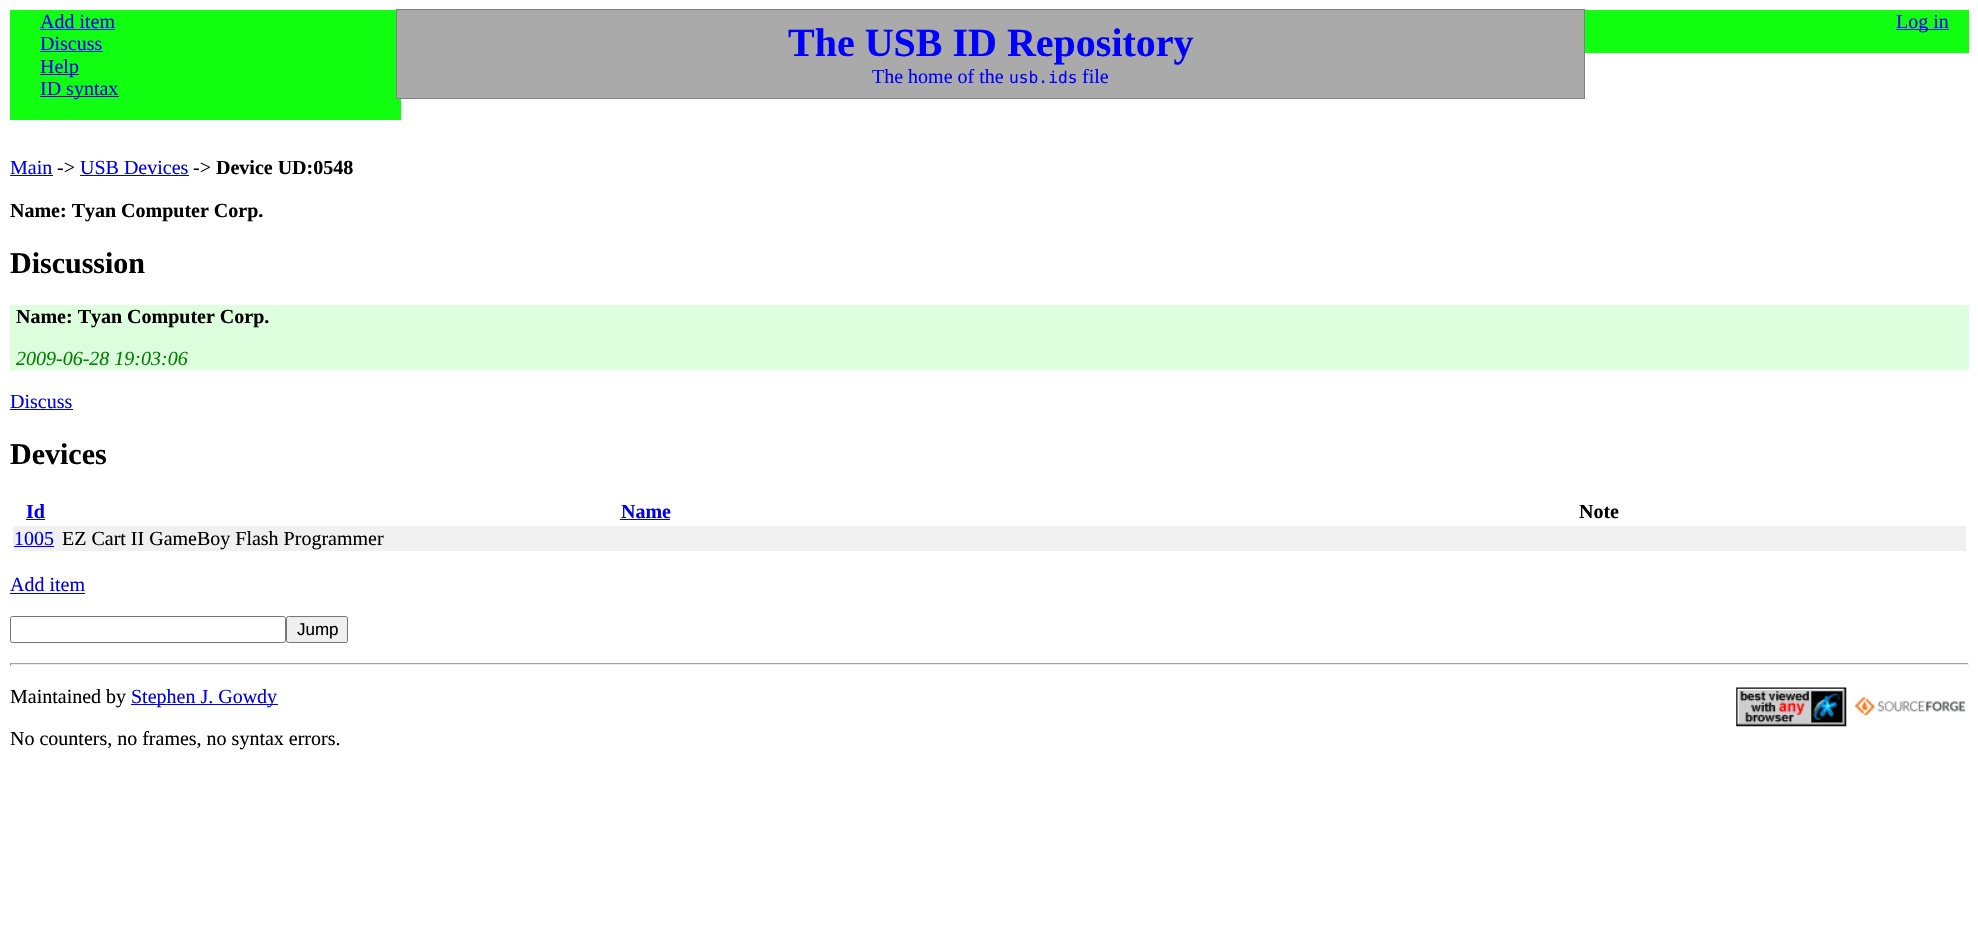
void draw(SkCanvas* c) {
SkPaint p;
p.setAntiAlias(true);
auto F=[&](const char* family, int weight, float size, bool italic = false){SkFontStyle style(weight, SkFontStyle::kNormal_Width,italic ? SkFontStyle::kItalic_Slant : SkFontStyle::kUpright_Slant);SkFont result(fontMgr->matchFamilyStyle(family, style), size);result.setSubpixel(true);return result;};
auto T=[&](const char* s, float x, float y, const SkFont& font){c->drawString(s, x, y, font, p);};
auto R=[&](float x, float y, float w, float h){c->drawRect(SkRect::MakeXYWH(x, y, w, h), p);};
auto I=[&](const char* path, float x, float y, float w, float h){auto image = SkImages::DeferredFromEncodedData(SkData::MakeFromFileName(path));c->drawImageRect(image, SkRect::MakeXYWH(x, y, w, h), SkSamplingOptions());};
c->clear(0xffffffff);
p.setColor(0xff11ff11);
R(10,10,391,110);
auto f1 = F("Liberation Serif",400,20);
p.setColor(0xff0000ee);
T("Add item",40,28,f1);
R(40,29,75,1);
T("Discuss",40,50,f1);
R(40,51,63,1);
R(40,74,39,1);
T("Help",40,73,f1);
R(40,96,79,1);
T("ID syntax",40,95,f1);
p.setColor(0xff11ff11);
R(1585,10,384,43);
p.setColor(0xff0000ee);
R(1896,29,53,1);
T("Log in",1896,28,f1);
p.setColor(0xffaaaaaa);
c->drawRect(SkRect::MakeXYWH(396.5,9.5,1188,89),p);
p.setStroke(true);
p.setStrokeWidth(1);
p.setColor(0xff808080);
c->drawRect(SkRect::MakeXYWH(396.5,9.5,1188,89),p);
auto f2 = F("Liberation Serif",700,40);
p.setStroke(false);
p.setColor(0xff0000ff);
T("The USB ID Repository",788,56,f2);
T("The home of the",872,83,f1);
auto f3 = F("DejaVu Sans Mono",400,16.25);
T("usb.ids",1009,83,f3);
T("file",1082,83,f1);
p.setColor(0xff0000ee);
T("Main",10,174,f1);
R(10,175,43,1);
p.setColor(0xff000000);
T("->",57,174,f1);
p.setColor(0xff0000ee);
T("USB Devices",80,174,f1);
R(80,175,109,1);
p.setColor(0xff000000);
T("->",193,174,f1);
auto f4 = F("Liberation Serif",700,20);
T("Device UD:0548",216,174,f4);
T("Name: Tyan Computer Corp.",10,217,f4);
auto f5 = F("Liberation Serif",700,30);
T("Discussion",10,273,f5);
p.setColor(0xffddffdd);
R(10,305,1959,65);
p.setColor(0xff000000);
T("Name: Tyan Computer Corp.",16,323,f4);
auto f6 = F("Liberation Serif",400,20,true);
p.setColor(0xff008000);
T("2009-06-28 19:03:06",16,365,f6);
p.setColor(0xff0000ee);
T("Discuss",10,408,f1);
R(10,409,63,1);
p.setColor(0xff000000);
T("Devices",10,464,f5);
p.setColor(0xff0000ee);
T("Id",26,518,f4);
R(26,519,19,1);
T("Name",621,518,f4);
R(620,519,50,1);
p.setColor(0xff000000);
T("Note",1579,518,f4);
p.setColor(0xfff0f0f0);
R(13,526,1953,25);
p.setColor(0xff0000ee);
T("1005",14,545,f1);
R(14,546,40,1);
p.setColor(0xff000000);
T("EZ Cart II GameBoy Flash Programmer",62,545,f1);
p.setColor(0xff0000ee);
T("Add item",10,591,f1);
R(10,593,75,1);
p.setStroke(true);
p.setColor(0xff767676);
c->drawRoundRect(SkRect::MakeXYWH(10.5,616.5,275,26),2,2,p);
p.setStroke(false);
p.setColor(0xffefefef);
c->drawRoundRect(SkRect::MakeXYWH(286.5,616.5,61,26),2,2,p);
p.setStroke(true);
p.setColor(0xff767676);
c->drawRoundRect(SkRect::MakeXYWH(286.5,616.5,61,26),2,2,p);
auto f7 = F("Liberation Sans",400,17);
p.setStroke(false);
p.setColor(0xff000000);
T("Jump",297,635,f7);
p.setColor(0xff9f9f9f);
R(10,663,1959,1);
p.setColor(0xffeeeeee);
R(1968,663,1,3);
R(10,664,1959,1);
p.setColor(0xff9f9f9f);
R(10,663,1,3);
p.setColor(0xff000000);
T("Maintained by",10,703,f1);
p.setColor(0xff0000ee);
R(131,704,147,1);
T("Stephen J. Gowdy",131,703,f1);
I("1.png",1736,687,111,40);
I("2.png",1855,697,110,19);
p.setColor(0xff000000);
T("No counters, no frames, no syntax errors.",10,745,f1);
}
